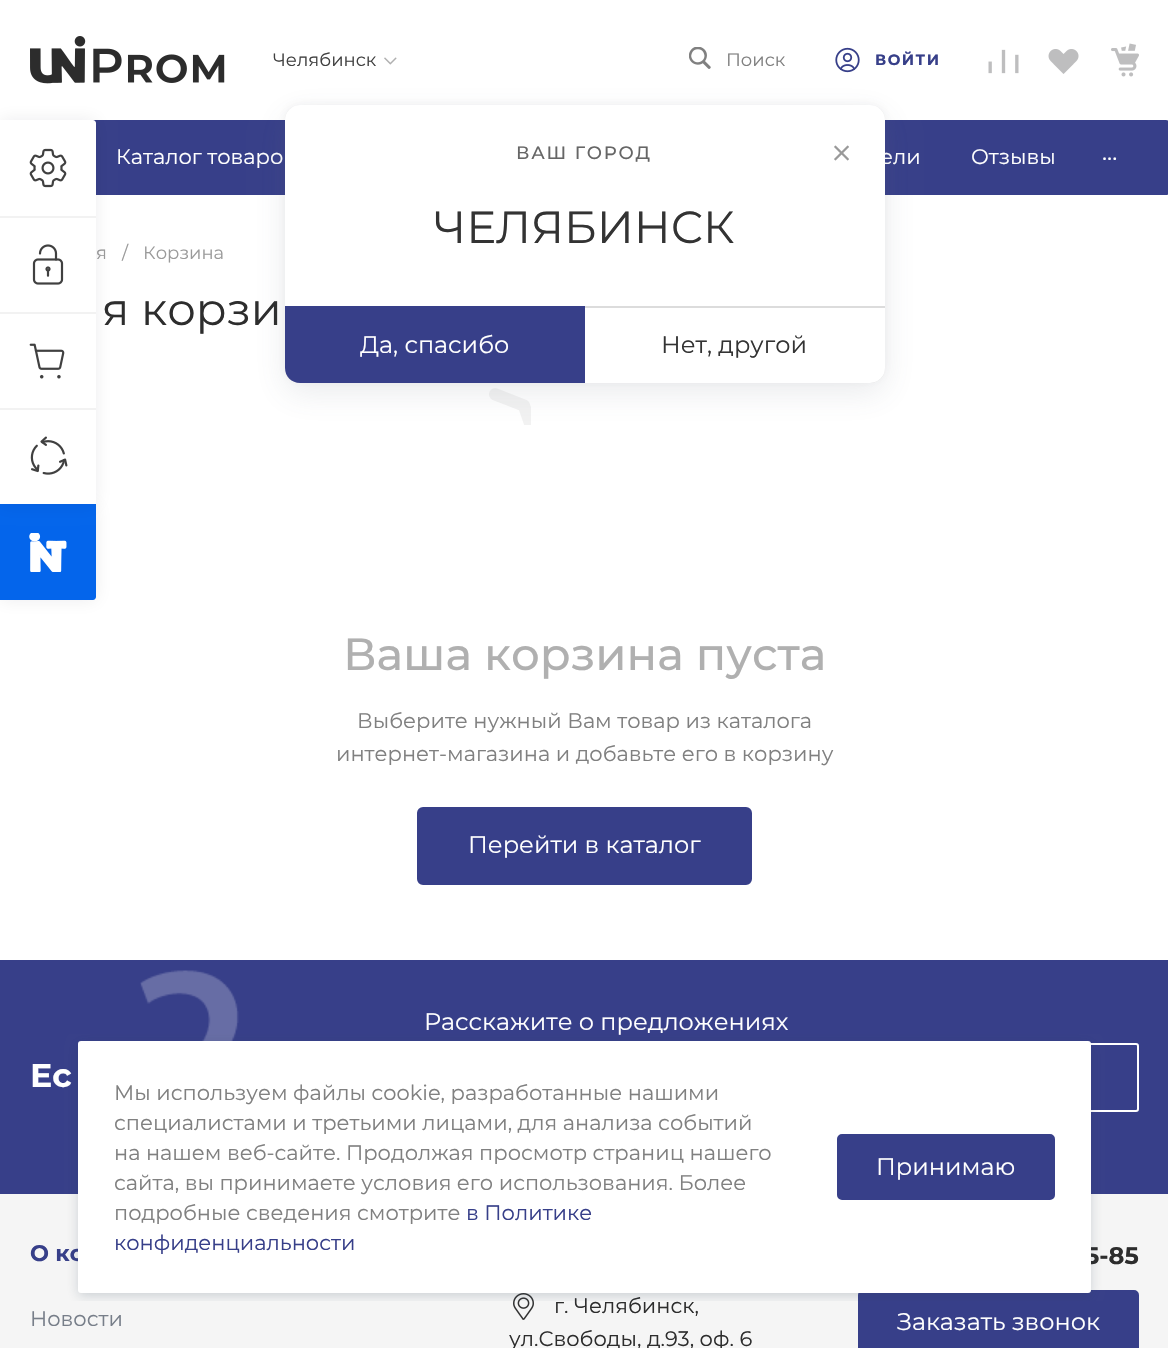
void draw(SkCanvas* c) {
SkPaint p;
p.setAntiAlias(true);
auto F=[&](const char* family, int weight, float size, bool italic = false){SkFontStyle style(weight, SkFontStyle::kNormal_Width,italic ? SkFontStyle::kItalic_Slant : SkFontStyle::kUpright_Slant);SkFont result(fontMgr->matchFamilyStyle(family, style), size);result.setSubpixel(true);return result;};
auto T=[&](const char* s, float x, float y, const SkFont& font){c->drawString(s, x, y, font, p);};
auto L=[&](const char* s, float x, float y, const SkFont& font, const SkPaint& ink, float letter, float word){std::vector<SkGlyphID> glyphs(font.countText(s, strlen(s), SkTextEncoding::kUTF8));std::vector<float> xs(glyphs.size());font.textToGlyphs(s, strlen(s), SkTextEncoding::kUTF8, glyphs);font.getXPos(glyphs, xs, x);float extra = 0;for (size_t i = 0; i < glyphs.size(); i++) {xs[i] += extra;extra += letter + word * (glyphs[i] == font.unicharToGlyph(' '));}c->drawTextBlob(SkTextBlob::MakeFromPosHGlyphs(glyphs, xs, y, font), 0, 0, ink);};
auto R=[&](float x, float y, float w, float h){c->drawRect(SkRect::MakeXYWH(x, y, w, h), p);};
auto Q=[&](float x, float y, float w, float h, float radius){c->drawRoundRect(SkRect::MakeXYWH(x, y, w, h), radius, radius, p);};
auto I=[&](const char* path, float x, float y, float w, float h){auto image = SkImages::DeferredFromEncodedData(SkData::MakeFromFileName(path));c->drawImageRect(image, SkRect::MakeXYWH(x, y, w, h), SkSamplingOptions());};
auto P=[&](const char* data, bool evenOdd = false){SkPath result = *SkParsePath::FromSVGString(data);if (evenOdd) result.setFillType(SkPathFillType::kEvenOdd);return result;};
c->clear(0xffffffff);
I("1.png",30,36,195,48);
auto f1 = F("Montserrat",400,18);
p.setColor(0xff404040);
T("Челябинск",273,66,f1);
I("2.png",384,57,13,8);
I("3.png",689,47,22,22);
p.setColor(0xff808080);
T("Поиск",726,66,f1);
I("4.png",835,47,25,26);
auto f2 = F("Montserrat",700,15);
p.setColor(0xff373f89);
L("ВОЙТИ",875,65,f2,p,1.5,0);
I("5.png",988,49,31,25);
I("6.png",1048,49,31,25);
I("7.png",1111,43,28,34);
Q(0,120,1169,75,3);
auto f3 = F("Montserrat",400,21);
p.setColor(0xffffffff);
T("Каталог товаро",116,164,f3);
T("ели",880,164,f3);
T("Отзывы",971,164,f3);
auto f4 = F("Montserrat",400,24);
T("...",1102,160,f4);
p.setColor(0xff9a9a9a);
T("я",96,259,f1);
T("/",122,259,f1);
T("Корзина",143,259,f1);
auto f5 = F("Montserrat",400,45);
p.setColor(0xff2d2d2d);
T("я корзи",102,325,f5);
I("8.png",489,388,42,37);
auto f6 = F("Montserrat",500,45);
p.setColor(0xffb0b0b0);
T("Ваша корзина пуста",343,670,f6);
p.setColor(0xff808080);
T("Выберите нужный Вам товар из каталога",357,728,f3);
T("интернет-магазина и добавьте его в корзину",336,761,f3);
p.setColor(0xff373f89);
c->drawRoundRect(SkRect::MakeXYWH(418.5,808.5,332,75),4.5,4.5,p);
p.setStroke(true);
p.setStrokeWidth(3);
c->drawRoundRect(SkRect::MakeXYWH(418.5,808.5,332,75),4.5,4.5,p);
p.setStroke(false);
p.setColor(0xffffffff);
T("Перейти в каталог",468,853,f4);
p.setColor(0xff373f89);
R(0,960,1168,234);
p.setColor(0xffffffff);
T("Расскажите о предложениях",424,1030,f4);
I("9.png",140,970,99,71);
auto f7 = F("Montserrat",700,33);
T("Ес",30,1087,f7);
p.setStroke(true);
p.setStrokeWidth(2);
c->drawRoundRect(SkRect::MakeXYWH(909,1044,229,67),2,2,p);
p.setStroke(false);
p.setColor(0xfff5f5f5);
R(0,1194,1168,154);
auto f8 = F("Montserrat",700,22.5);
p.setColor(0xff373f89);
T("О ко",30,1261,f8);
p.setColor(0xff777e89);
T("Новости",30,1326,f3);
auto f9 = F("Montserrat",700,24);
p.setColor(0xff2d2d2d);
T("5-85",1085,1264,f9);
I("10.png",513,1293,21,27);
T("г. Челябинск,",554,1313,f3);
T("ул.Свободы, д.93, оф. 6",509,1346,f3);
p.setColor(0xff373f89);
c->drawRoundRect(SkRect::MakeXYWH(859.5,1291.5,278,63),3.5,3.5,p);
p.setStroke(true);
p.setStrokeWidth(3);
c->drawRoundRect(SkRect::MakeXYWH(859.5,1291.5,278,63),3.5,3.5,p);
p.setStroke(false);
p.setColor(0xffffffff);
T("Заказать звонок",897,1330,f4);
p.setColor(0x141b1e25);
p.setMaskFilter(SkMaskFilter::MakeBlur(kNormal_SkBlurStyle, 9));
c->drawRoundRect(SkRect::MakeXYWH(0,504,96,96),3,3,p);
p.setMaskFilter(nullptr);
p.setColor(0xff0465eb);
c->drawPath(P("M0 504h96v93c0 1.5-1.5 3-3 3h-93z"),p);
p.setColor(0x141b1e25);
p.setMaskFilter(SkMaskFilter::MakeBlur(kNormal_SkBlurStyle, 9));
c->drawRoundRect(SkRect::MakeXYWH(0,120,96,384),3,3,p);
p.setMaskFilter(nullptr);
p.setColor(0xffffffff);
c->drawPath(P("M0 120h93c1.5 0 3 1.5 3 3v93h-96z"),p);
I("11.png",29,148,38,40);
R(0,218,96,94);
p.setColor(0xfff2f2f2);
R(0,216,96,2);
I("12.png",32,244,32,41);
p.setColor(0xffffffff);
R(0,314,96,94);
p.setColor(0xfff2f2f2);
R(0,312,96,2);
I("13.png",29,343,36,36);
p.setColor(0xffffffff);
R(0,410,96,94);
p.setColor(0xfff2f2f2);
R(0,408,96,2);
I("14.png",30,436,38,39);
p.setColor(0x0f535c69);
p.setMaskFilter(SkMaskFilter::MakeBlur(kNormal_SkBlurStyle, 4.5));
c->drawRoundRect(SkRect::MakeXYWH(285,104,600,277),15,15,p);
p.setMaskFilter(nullptr);
p.setColor(0x1f535c69);
p.setMaskFilter(SkMaskFilter::MakeBlur(kNormal_SkBlurStyle, 16));
c->drawRoundRect(SkRect::MakeXYWH(285,116,600,277),15,15,p);
p.setMaskFilter(nullptr);
c->save();
c->clipPath(P("M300 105h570c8.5 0 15 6.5 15 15v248c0 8.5-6.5 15-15 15h-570c-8.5 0-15-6.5-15-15v-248c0-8.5 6.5-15 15-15z"),true);
p.setColor(0x26000000);
p.setMaskFilter(SkMaskFilter::MakeBlur(kNormal_SkBlurStyle, 19));
c->drawRect(SkRect::MakeXYWH(285,111,600,278),p);
p.setMaskFilter(nullptr);
c->restore();
p.setColor(0xffffffff);
Q(285,105,600,278,15);
auto f10 = F("Montserrat",500,18);
p.setColor(0xff666666);
L("ВАШ ГОРОД",516,159,f10,p,1.75,0);
p.setColor(0xff333333);
T("ЧЕЛЯБИНСК",434,243,f5);
I("15.png",834,145,15,16);
p.setColor(0xffdcdcdc);
R(585,306,300,2);
p.setColor(0xff373f89);
c->drawPath(P("M285 306h300v77h-285c-8.5 0-15-6.5-15-15z"),p);
p.setColor(0xffffffff);
T("Да, спасибо",360,353,f4);
p.setColor(0xff333333);
T("Нет, другой",661,353,f4);
I("16.png",29,533,38,39);
c->save();
c->clipRect(SkRect::MakeXYWH(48,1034,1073,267));
p.setColor(0x33223c50);
p.setMaskFilter(SkMaskFilter::MakeBlur(kNormal_SkBlurStyle, 6));
c->drawRoundRect(SkRect::MakeXYWH(78,1044,1013,252),3,3,p);
p.setMaskFilter(nullptr);
c->restore();
p.setColor(0xffffffff);
Q(78,1041,1013,252,3);
p.setColor(0xff808080);
T("Мы используем файлы cookie, разработанные нашими",114,1100,f3);
T("специалистами и третьими лицами, для анализа событий",114,1130,f3);
T("на нашем веб-сайте. Продолжая просмотр страниц нашего",114,1160,f3);
T("сайта, вы принимаете условия его использования. Более",114,1190,f3);
T("подробные сведения смотрите",114,1220,f3);
p.setColor(0xff373f89);
T("в Политике",466,1220,f3);
T("конфиденциальности",114,1250,f3);
c->drawRoundRect(SkRect::MakeXYWH(838.5,1135.5,215,63),3.5,3.5,p);
p.setStroke(true);
c->drawRoundRect(SkRect::MakeXYWH(838.5,1135.5,215,63),3.5,3.5,p);
p.setStroke(false);
p.setColor(0xffffffff);
T("Принимаю",876,1175,f4);
}
